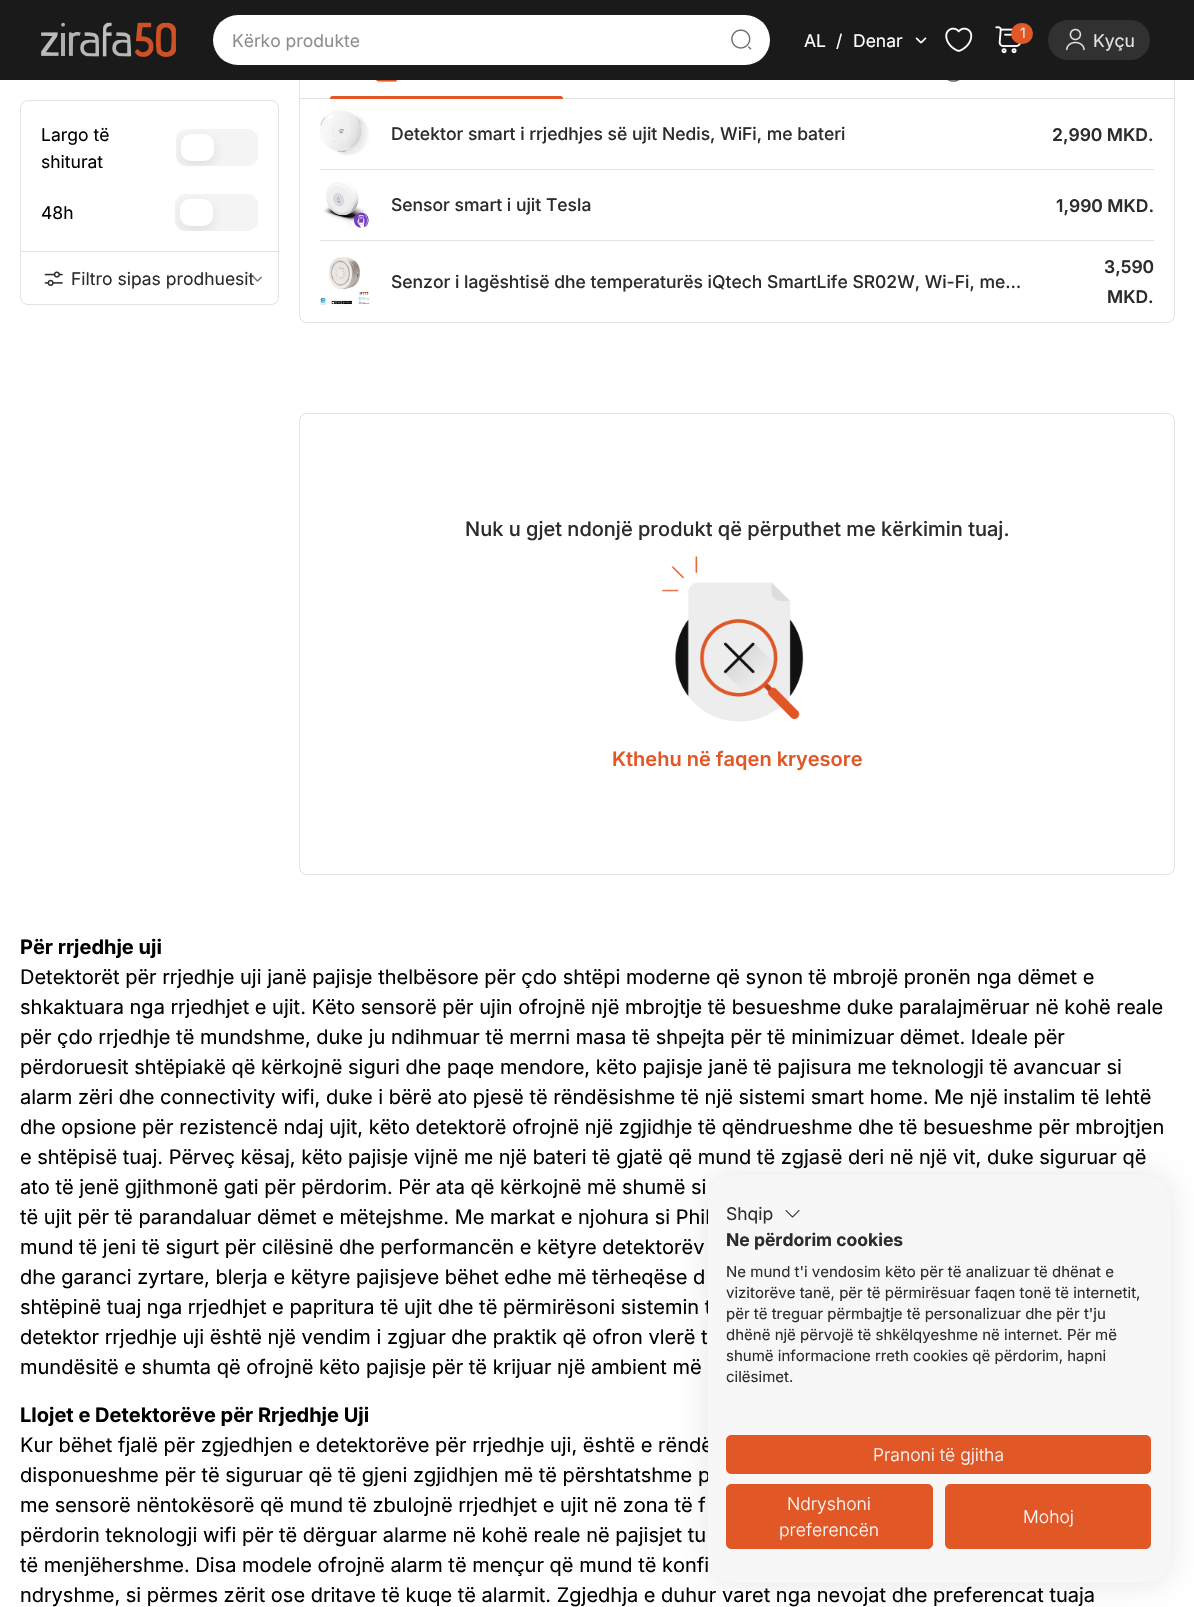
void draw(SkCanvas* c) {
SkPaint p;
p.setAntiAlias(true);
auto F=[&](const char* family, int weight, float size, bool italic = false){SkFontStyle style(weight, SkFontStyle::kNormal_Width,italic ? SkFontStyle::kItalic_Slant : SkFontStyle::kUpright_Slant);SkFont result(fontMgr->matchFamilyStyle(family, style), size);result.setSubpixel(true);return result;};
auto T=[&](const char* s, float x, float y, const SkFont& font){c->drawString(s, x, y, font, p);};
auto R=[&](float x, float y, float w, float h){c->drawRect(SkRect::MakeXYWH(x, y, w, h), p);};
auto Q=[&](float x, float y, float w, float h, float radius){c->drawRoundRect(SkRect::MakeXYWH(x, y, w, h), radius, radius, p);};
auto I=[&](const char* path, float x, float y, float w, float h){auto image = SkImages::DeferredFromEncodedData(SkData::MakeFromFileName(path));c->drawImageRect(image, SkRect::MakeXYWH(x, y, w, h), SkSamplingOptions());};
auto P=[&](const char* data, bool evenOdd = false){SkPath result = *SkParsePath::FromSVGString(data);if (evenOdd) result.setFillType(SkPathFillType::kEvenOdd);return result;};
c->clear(0xffffffff);
p.setStroke(true);
p.setStrokeWidth(1);
p.setColor(0xffe2e2e2);
c->drawRoundRect(SkRect::MakeXYWH(299.5,44.5,875,278),7.5,7.5,p);
p.setStroke(false);
p.setColor(0xff1a1a1a);
R(0,0,1194,80);
I("1.png",41,22,135,35);
p.setColor(0xffffffff);
Q(213,15,557,50,25);
auto f1 = F("Inter",400,17.5);
p.setColor(0xff8e8e8e);
T("Kërko produkte",232,47,f1);
I("2.png",731,29,21,21);
p.setColor(0xffffffff);
T("AL",804,47,f1);
T("/",836,47,f1);
T("Denar",853,47,f1);
I("3.png",915,37,12,7);
I("4.png",945,27,28,25);
I("5.png",995,26,26,28);
p.setColor(0xffe15726);
Q(1011,23,22,21,10.5);
auto f2 = F("Inter",400,14);
p.setColor(0xffe2e2e2);
T("1",1020,38,f2);
p.setColor(0xff313131);
Q(1048,20,102,40,20);
I("6.png",1066,28,19,23);
p.setColor(0xffe2e2e2);
T("Kyçu",1093,47,f1);
p.setStroke(true);
c->drawRoundRect(SkRect::MakeXYWH(20.5,100.5,258,204),7.5,7.5,p);
p.setStroke(false);
R(21,251,257,1);
p.setColor(0xff000000);
T("Largo të",41,141,f1);
T("shiturat",41,168,f1);
p.setColor(0xfff4f4f4);
Q(176,129,82,37,10);
c->save();
c->clipPath(P("M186 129h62c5.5 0 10 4.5 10 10v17c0 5.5-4.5 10-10 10h-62c-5.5 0-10-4.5-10-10v-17c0-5.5 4.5-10 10-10z"),true);
p.setColor(0x1a2c2c2c);
p.setMaskFilter(SkMaskFilter::MakeBlur(kNormal_SkBlurStyle, 6));
c->drawRoundRect(SkRect::MakeXYWH(181,139,33,27),10,10,p);
p.setMaskFilter(nullptr);
c->restore();
p.setColor(0xffffffff);
Q(181,134,33,27,10);
p.setColor(0xff000000);
T("48h",41,219,f1);
p.setColor(0xfff4f4f4);
Q(175,194,83,37,10);
c->save();
c->clipPath(P("M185 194h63c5.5 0 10 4.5 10 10v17c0 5.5-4.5 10-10 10h-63c-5.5 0-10-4.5-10-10v-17c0-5.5 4.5-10 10-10z"),true);
p.setColor(0x1a2c2c2c);
p.setMaskFilter(SkMaskFilter::MakeBlur(kNormal_SkBlurStyle, 6));
c->drawRoundRect(SkRect::MakeXYWH(180,204,33,27),10,10,p);
p.setMaskFilter(nullptr);
c->restore();
p.setColor(0xffffffff);
Q(180,199,33,27,10);
I("7.png",44,271,19,15);
p.setColor(0xff2c2c2c);
T("Filtro sipas prodhuesit",71,285,f1);
I("8.png",253,276,9,6);
p.setColor(0xffe2e2e2);
R(300,98,874,1);
I("9.png",376,80,21,2);
p.setColor(0xffe15726);
c->drawPath(P("M332.5 96h228c1.5 0 2.5 1 2.5 2.5v.5h-233v-.5c0-1.5 1-2.5 2.5-2.5z"),p);
I("10.png",947,80,13,2);
p.setColor(0xffe2e2e2);
R(320,169,834,1);
I("11.png",320,110,49,46);
auto f3 = F("Inter",500,17.5);
p.setColor(0xff2c2c2c);
T("Detektor smart i rrjedhjes së ujit Nedis, WiFi, me bateri",391,140,f3);
auto f4 = F("Inter",600,17.5);
T("2,990 MKD.",1052,141,f4);
p.setColor(0xffe2e2e2);
R(320,240,834,1);
I("12.png",323,182,46,46);
p.setColor(0xff2c2c2c);
T("Sensor smart i ujit Tesla",391,211,f3);
T("1,990 MKD.",1056,212,f4);
I("13.png",320,257,50,48);
T("Senzor i lagështisë dhe temperaturës iQtech SmartLife SR02W, Wi-Fi, me…",391,288,f3);
T("3,590",1104,273,f4);
T("MKD.",1107,303,f4);
p.setStroke(true);
p.setColor(0xffe2e2e2);
c->drawRoundRect(SkRect::MakeXYWH(299.5,413.5,875,461),7.5,7.5,p);
auto f5 = F("Inter",500,20);
p.setStroke(false);
p.setColor(0xff2c2c2c);
T("Nuk u gjet ndonjë produkt që përputhet me kërkimin tuaj.",465,536,f5);
I("14.png",661,556,143,166);
auto f6 = F("Inter",600,20);
p.setColor(0xffe15726);
T("Kthehu në faqen kryesore",612,766,f6);
auto f7 = F("Inter",700,20);
p.setColor(0xff000000);
T("Për rrjedhje uji",20,954,f7);
auto f8 = F("Inter",400,20);
T("Detektorët për rrjedhje uji janë pajisje thelbësore për çdo shtëpi moderne që synon të mbrojë pronën nga dëmet e",20,984,f8);
T("shkaktuara nga rrjedhjet e ujit. Këto sensorë për ujin ofrojnë një mbrojtje të besueshme duke paralajmëruar në kohë reale",20,1014,f8);
T("për çdo rrjedhje të mundshme, duke ju ndihmuar të merrni masa të shpejta për të minimizuar dëmet. Ideale për",20,1044,f8);
T("përdoruesit shtëpiakë që kërkojnë siguri dhe paqe mendore, këto pajisje janë të pajisura me teknologji të avancuar si",20,1074,f8);
T("alarm zëri dhe connectivity wifi, duke i bërë ato pjesë të rëndësishme të një sistemi smart home. Me një instalim të lehtë",20,1104,f8);
T("dhe opsione për rezistencë ndaj ujit, këto detektorë ofrojnë një zgjidhje të qëndrueshme dhe të besueshme për mbrojtjen",20,1134,f8);
T("e shtëpisë tuaj. Përveç kësaj, këto pajisje vijnë me një bateri të gjatë që mund të zgjasë deri në një vit, duke siguruar që",20,1164,f8);
T("ato të jenë gjithmonë gati për përdorim. Për ata që kërkojnë më shumë si",20,1194,f8);
T("të ujit për të parandaluar dëmet e mëtejshme. Me markat e njohura si Phil",20,1224,f8);
T("mund të jeni të sigurt për cilësinë dhe performancën e këtyre detektorëv",20,1254,f8);
T("dhe garanci zyrtare, blerja e këtyre pajisjeve bëhet edhe më tërheqëse d",20,1284,f8);
T("shtëpinë tuaj nga rrjedhjet e papritura të ujit dhe të përmirësoni sistemin t",20,1314,f8);
T("detektor rrjedhje uji është një vendim i zgjuar dhe praktik që ofron vlerë t",20,1344,f8);
T("mundësitë e shumta që ofrojnë këto pajisje për të krijuar një ambient më",20,1374,f8);
T("Llojet e Detektorëve për Rrjedhje Uji",20,1422,f7);
T("Kur bëhet fjalë për zgjedhjen e detektorëve për rrjedhje uji, është e rëndë",20,1452,f8);
T("disponueshme për të siguruar që të gjeni zgjidhjen më të përshtatshme p",20,1482,f8);
T("me sensorë nëntokësorë që mund të zbulojnë rrjedhjet e ujit në zona të f",20,1512,f8);
T("përdorin teknologji wifi për të dërguar alarme në kohë reale në pajisjet tu",20,1542,f8);
T("të menjëhershme. Disa modele ofrojnë alarm të mençur që mund të konfi",20,1572,f8);
T("ndryshme, si përmes zërit ose dritave të kuqe të alarmit. Zgjedhja e duhur varet nga nevojat dhe preferencat tuaja",20,1602,f8);
p.setColor(0x1a000000);
p.setMaskFilter(SkMaskFilter::MakeBlur(kNormal_SkBlurStyle, 15));
c->drawRoundRect(SkRect::MakeXYWH(708,1175,462,408),25,25,p);
p.setMaskFilter(nullptr);
p.setColor(0xfff7f7f7);
Q(708,1175,462,408,25);
p.setColor(0xff2c2c2c);
T("Shqip",726,1220,f1);
I("15.png",785,1210,15,8);
auto f9 = F("Inter",700,17.5);
T("Ne përdorim cookies",726,1246,f9);
auto f10 = F("Inter",400,15);
T("Ne mund t'i vendosim këto për të analizuar të dhënat e",726,1277,f10);
T("vizitorëve tanë, për të përmirësuar faqen tonë të internetit,",726,1298,f10);
T("për të treguar përmbajtje të personalizuar dhe për t'ju",726,1319,f10);
T("dhënë një përvojë të shkëlqyeshme në internet. Për më",726,1340,f10);
T("shumë informacione rreth cookies që përdorim, hapni",726,1361,f10);
T("cilësimet.",726,1382,f10);
p.setColor(0xffe15726);
c->drawRoundRect(SkRect::MakeXYWH(726.5,1435.5,424,38),4.5,4.5,p);
p.setStroke(true);
c->drawRoundRect(SkRect::MakeXYWH(726.5,1435.5,424,38),4.5,4.5,p);
auto f11 = F("Inter",300,17.5);
p.setStroke(false);
p.setColor(0xfff7f7f7);
T("Pranoni të gjitha",873,1461,f11);
p.setColor(0xffe15726);
c->drawRoundRect(SkRect::MakeXYWH(726.5,1484.5,206,64),4.5,4.5,p);
p.setStroke(true);
c->drawRoundRect(SkRect::MakeXYWH(726.5,1484.5,206,64),4.5,4.5,p);
p.setStroke(false);
p.setColor(0xfff7f7f7);
T("Ndryshoni",787,1510,f11);
T("preferencën",779,1536,f11);
p.setColor(0xffe15726);
c->drawRoundRect(SkRect::MakeXYWH(945.5,1484.5,205,64),4.5,4.5,p);
p.setStroke(true);
c->drawRoundRect(SkRect::MakeXYWH(945.5,1484.5,205,64),4.5,4.5,p);
p.setStroke(false);
p.setColor(0xfff7f7f7);
T("Mohoj",1023,1523,f11);
}
